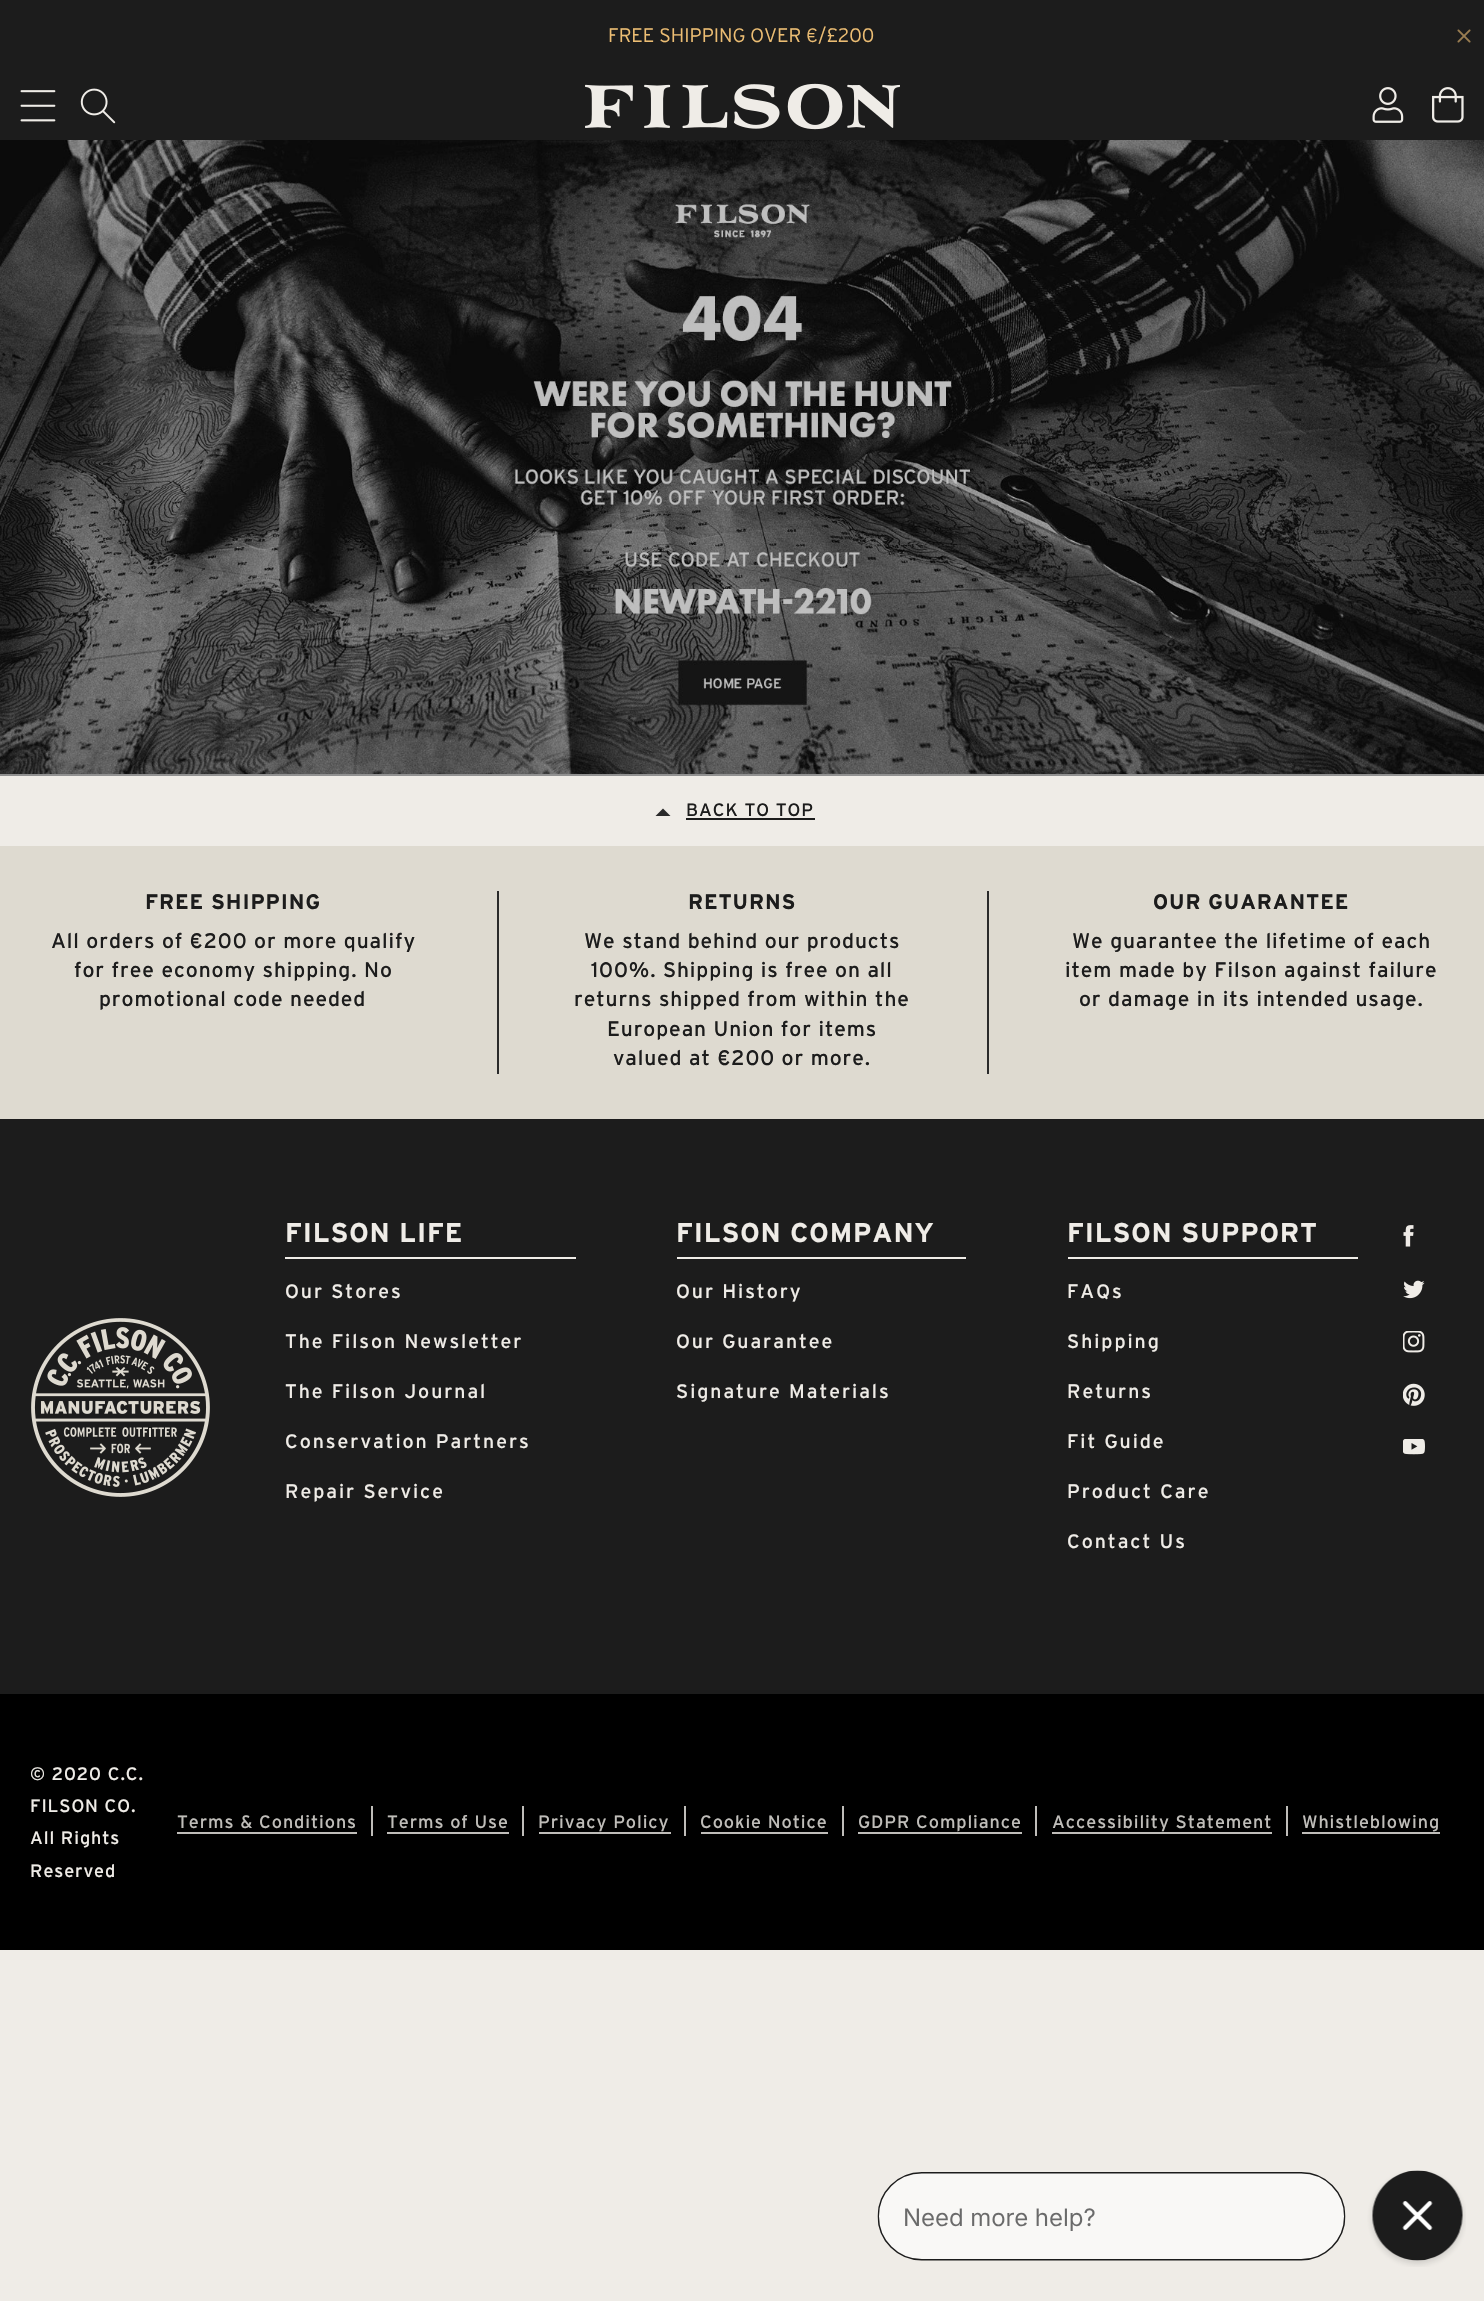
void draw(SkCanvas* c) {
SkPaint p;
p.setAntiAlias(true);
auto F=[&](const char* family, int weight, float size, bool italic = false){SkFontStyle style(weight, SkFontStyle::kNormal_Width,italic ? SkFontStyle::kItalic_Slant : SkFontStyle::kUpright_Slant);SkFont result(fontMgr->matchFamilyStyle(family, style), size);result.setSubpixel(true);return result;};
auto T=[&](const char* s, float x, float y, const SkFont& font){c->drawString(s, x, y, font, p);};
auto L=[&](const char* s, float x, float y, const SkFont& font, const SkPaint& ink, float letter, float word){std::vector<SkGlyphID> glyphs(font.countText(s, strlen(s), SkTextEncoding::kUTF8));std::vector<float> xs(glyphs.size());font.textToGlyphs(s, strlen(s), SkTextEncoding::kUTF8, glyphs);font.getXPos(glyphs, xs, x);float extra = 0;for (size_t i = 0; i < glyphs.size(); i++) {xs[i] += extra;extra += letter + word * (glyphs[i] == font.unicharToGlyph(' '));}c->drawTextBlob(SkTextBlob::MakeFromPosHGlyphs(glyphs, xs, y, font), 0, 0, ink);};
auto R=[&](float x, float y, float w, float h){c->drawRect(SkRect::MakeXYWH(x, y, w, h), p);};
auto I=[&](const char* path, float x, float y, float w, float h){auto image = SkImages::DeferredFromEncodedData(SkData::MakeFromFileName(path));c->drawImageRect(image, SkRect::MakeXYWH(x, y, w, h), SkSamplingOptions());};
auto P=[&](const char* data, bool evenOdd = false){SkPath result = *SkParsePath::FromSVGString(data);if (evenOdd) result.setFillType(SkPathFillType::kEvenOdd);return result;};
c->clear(0xffefece7);
p.setColor(0xff1c1c1c);
R(0,0,1484,140);
I("1.png",20,90,36,32);
I("2.png",80,88,36,36);
I("3.png",585,83,315,47);
I("4.png",1372,87,32,36);
I("5.png",1432,87,32,36);
auto f1 = F("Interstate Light",300,19.5);
p.setColor(0xffecbd73);
T("FREE SHIPPING OVER €/£200",608,42,f1);
I("6.png",1457,29,14,14);
I("7.png",0,140,1484,634);
p.setColor(0xff909090);
R(0,774,1484,2);
p.setColor(0xff2a2a2a);
c->drawPath(P("M670.5 816h-15l7.5-7.5z"),p);
auto f2 = F("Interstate",400,18);
p.setColor(0xff1c1c1c);
L("BACK TO TOP",686,816,f2,p,.9,0);
R(686,818,129,2);
p.setColor(0xffdedad0);
R(0,846,1484,273);
p.setColor(0xff2a2a2a);
R(497,891,2,183);
auto f3 = F("Interstate",700,21);
p.setColor(0xff1c1c1c);
L("FREE SHIPPING",145,909,f3,p,.9,0);
auto f4 = F("Interstate",400,21);
L("All orders of €200 or more qualify",51,948,f4,p,.9,0);
L("for free economy shipping. No",74,977,f4,p,.9,0);
L("promotional code needed",99,1006,f4,p,.9,0);
p.setColor(0xff2a2a2a);
R(987,891,2,183);
p.setColor(0xff1c1c1c);
L("RETURNS",688,909,f3,p,.9,0);
L("We stand behind our products",584,948,f4,p,.9,0);
L("100%. Shipping is free on all",591,977,f4,p,.9,0);
L("returns shipped from within the",574,1006,f4,p,.9,0);
L("European Union for items",607,1036,f4,p,.9,0);
L("valued at €200 or more.",613,1065,f4,p,.9,0);
L("OUR GUARANTEE",1153,909,f3,p,.9,0);
L("We guarantee the lifetime of each",1072,948,f4,p,.9,0);
L("item made by Filson against failure",1065,977,f4,p,.9,0);
L("or damage in its intended usage.",1079,1006,f4,p,.9,0);
R(0,1119,1484,575);
I("8.png",31,1318,179,179);
p.setColor(0xffefece7);
R(285,1257,291,2);
auto f5 = F("Interstate",700,27);
L("FILSON LIFE",285,1242,f5,p,.9,0);
auto f6 = F("Interstate",400,19.5);
L("Our Stores",285,1298,f6,p,1.95,0);
L("The Filson Newsletter",285,1348,f6,p,1.95,0);
L("The Filson Journal",285,1398,f6,p,1.95,0);
L("Conservation Partners",285,1448,f6,p,1.95,0);
L("Repair Service",285,1498,f6,p,1.95,0);
R(677,1257,289,2);
L("FILSON COMPANY",676,1242,f5,p,.9,0);
L("Our History",676,1298,f6,p,1.95,0);
L("Our Guarantee",676,1348,f6,p,1.95,0);
L("Signature Materials",676,1398,f6,p,1.95,0);
R(1068,1257,290,2);
L("FILSON SUPPORT",1067,1242,f5,p,.9,0);
L("FAQs",1067,1298,f6,p,1.95,0);
L("Shipping",1067,1348,f6,p,1.95,0);
L("Returns",1067,1398,f6,p,1.95,0);
L("Fit Guide",1067,1448,f6,p,1.95,0);
L("Product Care",1067,1498,f6,p,1.95,0);
L("Contact Us",1067,1548,f6,p,1.95,0);
I("9.png",1403,1225,11,22);
I("10.png",1403,1280,22,19);
I("11.png",1403,1331,22,22);
I("12.png",1403,1383,22,23);
I("13.png",1403,1439,22,16);
p.setColor(0xff000000);
R(0,1694,1484,256);
p.setColor(0xffefece7);
L("© 2020 C.C.",30,1780,f2,p,.9,0);
L("FILSON CO.",30,1812,f2,p,.9,0);
L("All Rights",30,1844,f2,p,.9,0);
L("Reserved",30,1877,f2,p,.9,0);
p.setColor(0xffbfbdb9);
R(177,1832,180,2);
L("Terms & Conditions",177,1828,f2,p,.9,0);
R(371,1806,2,30);
R(387,1832,122,2);
L("Terms of Use",387,1828,f2,p,.9,0);
R(522,1806,2,30);
R(539,1832,132,2);
L("Privacy Policy",538,1828,f2,p,.9,0);
R(684,1806,2,30);
R(701,1832,127,2);
L("Cookie Notice",700,1828,f2,p,.9,0);
R(842,1806,2,30);
R(858,1832,164,2);
L("GDPR Compliance",858,1828,f2,p,.9,0);
R(1035,1806,2,30);
R(1052,1832,220,2);
L("Accessibility Statement",1052,1828,f2,p,.9,0);
R(1286,1806,2,30);
R(1302,1832,138,2);
L("Whistleblowing",1302,1828,f2,p,.9,0);
I("14.png",877,2170,589,97);
}
